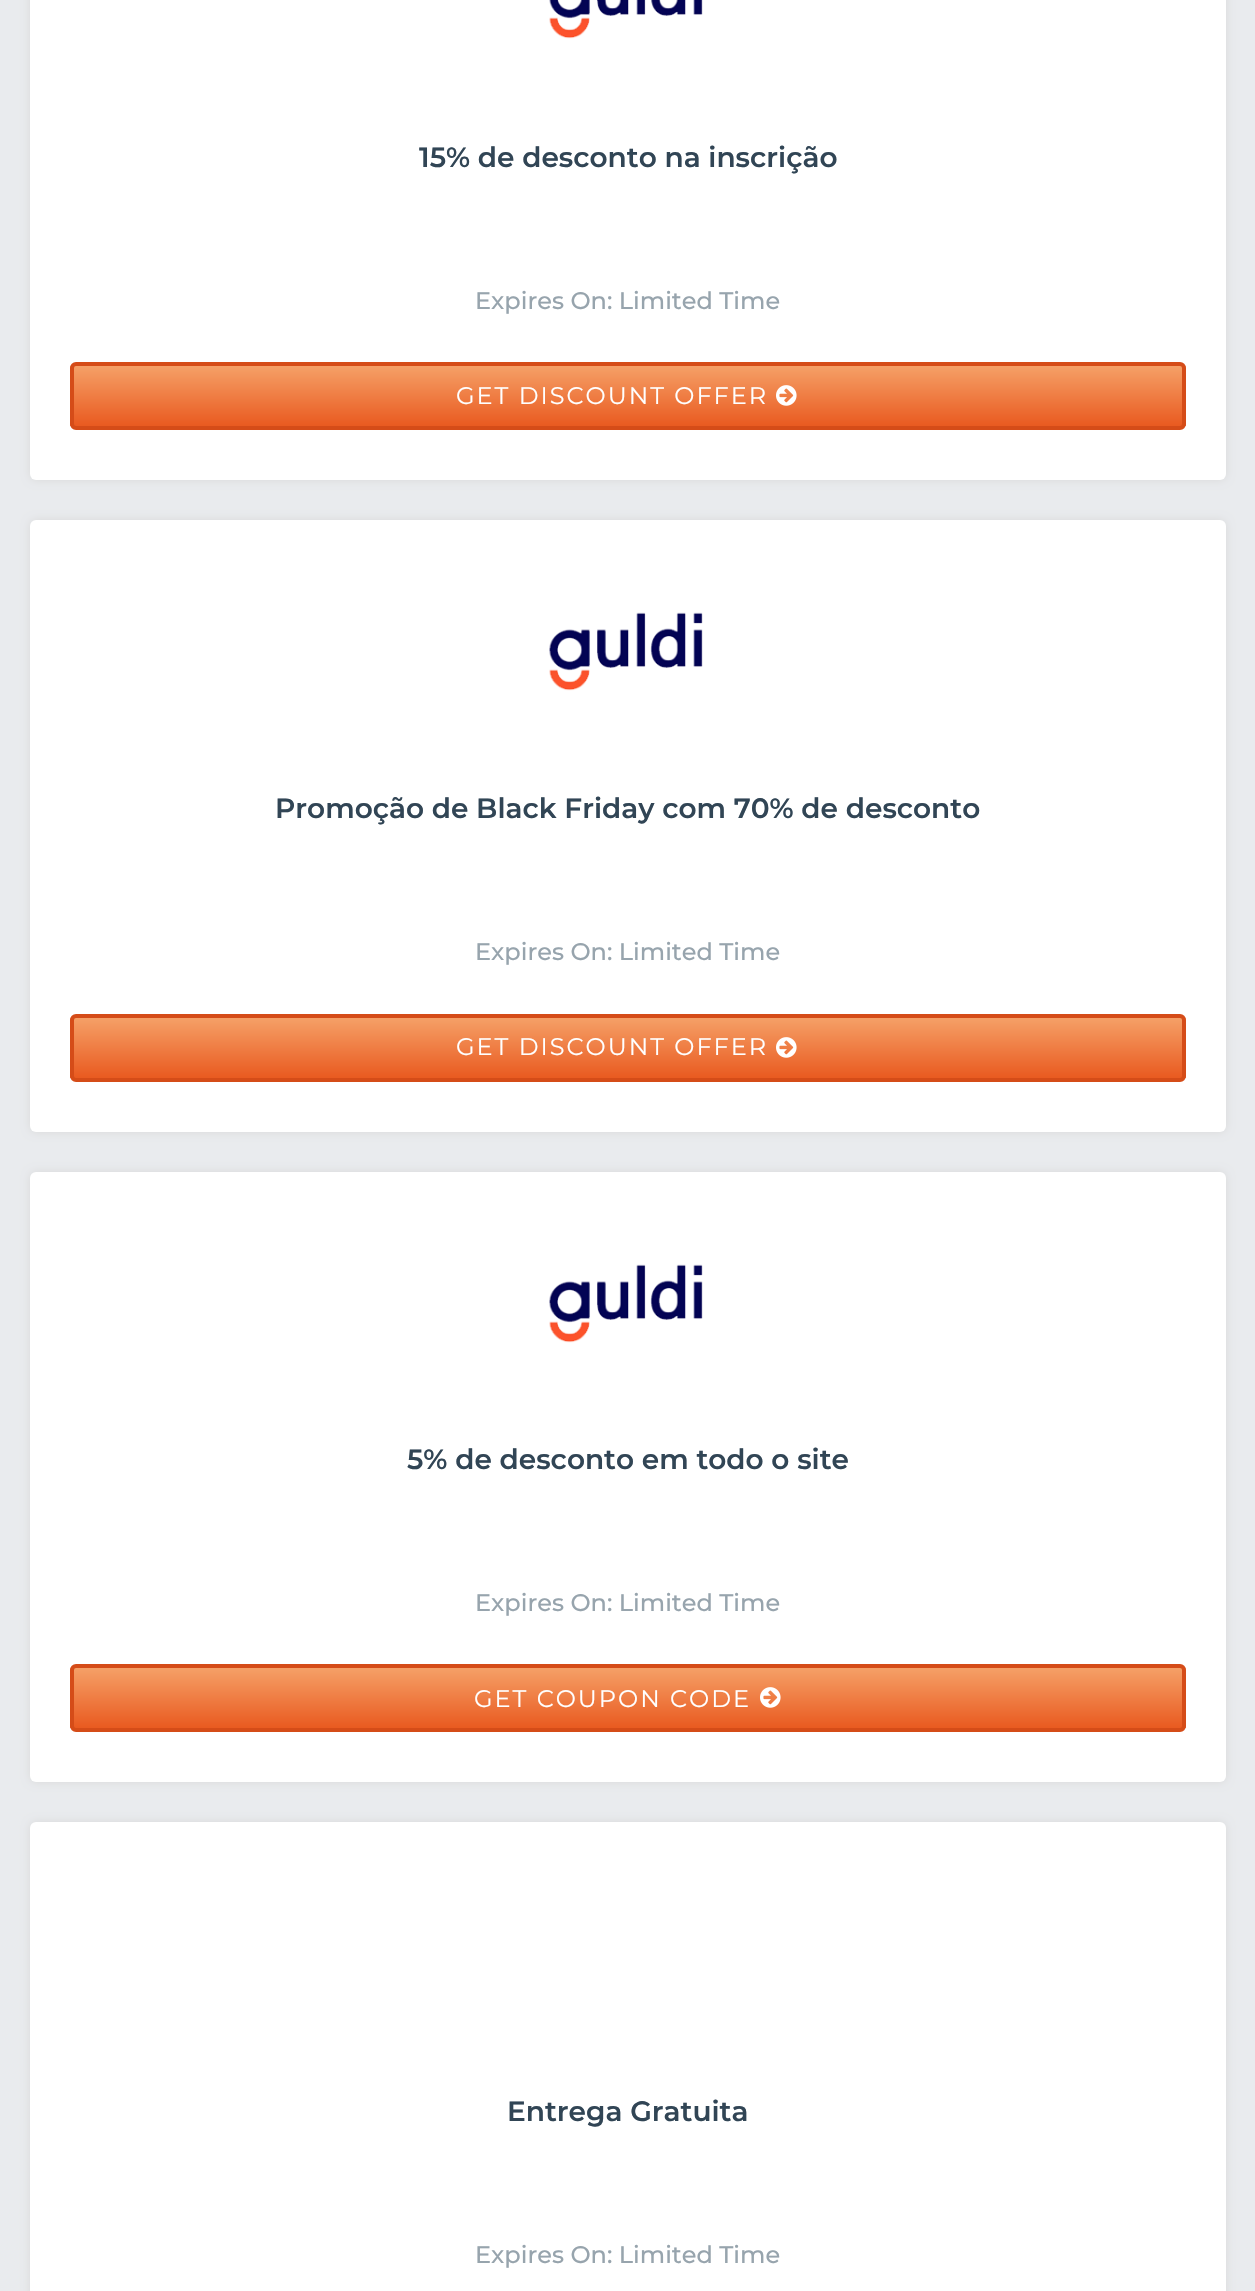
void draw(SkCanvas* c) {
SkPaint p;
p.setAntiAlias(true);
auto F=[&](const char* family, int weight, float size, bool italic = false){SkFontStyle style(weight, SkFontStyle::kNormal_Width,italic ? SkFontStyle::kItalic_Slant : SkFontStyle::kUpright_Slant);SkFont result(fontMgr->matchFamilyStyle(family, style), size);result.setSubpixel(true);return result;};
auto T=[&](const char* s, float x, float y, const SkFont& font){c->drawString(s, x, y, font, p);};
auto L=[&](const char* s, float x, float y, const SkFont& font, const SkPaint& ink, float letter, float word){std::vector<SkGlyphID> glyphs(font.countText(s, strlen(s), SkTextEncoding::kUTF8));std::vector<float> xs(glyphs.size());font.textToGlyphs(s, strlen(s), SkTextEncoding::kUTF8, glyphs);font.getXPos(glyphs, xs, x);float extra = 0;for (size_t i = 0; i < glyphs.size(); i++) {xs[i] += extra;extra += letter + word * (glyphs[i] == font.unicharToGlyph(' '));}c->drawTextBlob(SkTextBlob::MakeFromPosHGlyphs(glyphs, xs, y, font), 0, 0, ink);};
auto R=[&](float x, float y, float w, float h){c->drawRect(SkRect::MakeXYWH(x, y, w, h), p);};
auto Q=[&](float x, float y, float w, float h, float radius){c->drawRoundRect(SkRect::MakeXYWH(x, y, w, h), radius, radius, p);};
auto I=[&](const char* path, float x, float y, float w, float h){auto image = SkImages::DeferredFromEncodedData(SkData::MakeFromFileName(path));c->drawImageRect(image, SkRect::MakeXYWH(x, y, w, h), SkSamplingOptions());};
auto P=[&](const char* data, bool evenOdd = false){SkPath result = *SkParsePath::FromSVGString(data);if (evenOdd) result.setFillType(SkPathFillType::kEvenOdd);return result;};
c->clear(0xffe9ebee);
p.setColor(0xffd9d9d9);
p.setMaskFilter(SkMaskFilter::MakeBlur(kNormal_SkBlurStyle, 5));
c->drawRoundRect(SkRect::MakeXYWH(30,-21,1196,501),6,6,p);
p.setMaskFilter(nullptr);
p.setColor(0xffffffff);
Q(30,-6,1196,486,6);
I("1.png",549,0,154,39);
auto f1 = F("Montserrat",600,28);
p.setColor(0xff314555);
T("15% de desconto na inscrição",419,167,f1);
auto f2 = F("Montserrat",500,24);
p.setColor(0xff97a4ad);
T("Expires On: Limited Time",475,309,f2);
c->save();
c->clipPath(P("M76 362h1104c3.5 0 6 2.5 6 6v56c0 3.5-2.5 6-6 6h-1104c-3.5 0-6-2.5-6-6v-56c0-3.5 2.5-6 6-6z"),true);
{
const SkColor colors[] = {0xfff5a067,0xffe95a20};
const float stops[] = {0,1};
const SkPoint ends[] = {{628,366}, {628,426}};
p.setShader(SkGradientShader::MakeLinear(ends, colors, stops, 2, SkTileMode::kClamp));
p.setAlpha(255);
}
R(70,366,1116,60);
c->restore();
p.setStroke(true);
p.setStrokeWidth(4);
p.setShader(nullptr);
p.setColor(0xffd54c18);
c->drawRoundRect(SkRect::MakeXYWH(72,364,1112,64),4,4,p);
auto f3 = F("Montserrat",400,24);
p.setStroke(false);
p.setColor(0xffffffff);
L("GET DISCOUNT OFFER",456,404,f3,p,2,0);
I("2.png",776,385,21,21);
p.setColor(0xffd9d9d9);
p.setMaskFilter(SkMaskFilter::MakeBlur(kNormal_SkBlurStyle, 5));
c->drawRoundRect(SkRect::MakeXYWH(30,520,1196,612),6,6,p);
p.setMaskFilter(nullptr);
p.setColor(0xffffffff);
Q(30,520,1196,612,6);
I("3.png",549,612,154,79);
p.setColor(0xff314555);
T("Promoção de Black Friday com 70% de desconto",275,818,f1);
p.setColor(0xff97a4ad);
T("Expires On: Limited Time",475,960,f2);
c->save();
c->clipPath(P("M76 1014h1104c3.5 0 6 2.5 6 6v56c0 3.5-2.5 6-6 6h-1104c-3.5 0-6-2.5-6-6v-56c0-3.5 2.5-6 6-6z"),true);
{
const SkColor colors[] = {0xfff5a067,0xffe95a20};
const float stops[] = {0,1};
const SkPoint ends[] = {{628,1018}, {628,1078}};
p.setShader(SkGradientShader::MakeLinear(ends, colors, stops, 2, SkTileMode::kClamp));
p.setAlpha(255);
}
R(70,1018,1116,60);
c->restore();
p.setStroke(true);
p.setShader(nullptr);
p.setColor(0xffd54c18);
c->drawRoundRect(SkRect::MakeXYWH(72,1016,1112,64),4,4,p);
p.setStroke(false);
p.setColor(0xffffffff);
L("GET DISCOUNT OFFER",456,1055,f3,p,2,0);
I("2.png",776,1037,21,21);
p.setColor(0xffd9d9d9);
p.setMaskFilter(SkMaskFilter::MakeBlur(kNormal_SkBlurStyle, 5));
c->drawRoundRect(SkRect::MakeXYWH(30,1172,1196,610),6,6,p);
p.setMaskFilter(nullptr);
p.setColor(0xffffffff);
Q(30,1172,1196,610,6);
I("4.png",549,1264,154,79);
p.setColor(0xff314555);
T("5% de desconto em todo o site",407,1469,f1);
p.setColor(0xff97a4ad);
T("Expires On: Limited Time",475,1611,f2);
c->save();
c->clipPath(P("M76 1664h1104c3.5 0 6 2.5 6 6v56c0 3.5-2.5 6-6 6h-1104c-3.5 0-6-2.5-6-6v-56c0-3.5 2.5-6 6-6z"),true);
{
const SkColor colors[] = {0xfff5a067,0xffe95a20};
const float stops[] = {0,1};
const SkPoint ends[] = {{628,1668}, {628,1728}};
p.setShader(SkGradientShader::MakeLinear(ends, colors, stops, 2, SkTileMode::kClamp));
p.setAlpha(255);
}
R(70,1668,1116,60);
c->restore();
p.setStroke(true);
p.setShader(nullptr);
p.setColor(0xffd54c18);
c->drawRoundRect(SkRect::MakeXYWH(72,1666,1112,64),4,4,p);
p.setStroke(false);
p.setColor(0xffffffff);
L("GET COUPON CODE",474,1707,f3,p,2,0);
I("2.png",760,1687,21,21);
p.setColor(0xffd9d9d9);
p.setMaskFilter(SkMaskFilter::MakeBlur(kNormal_SkBlurStyle, 5));
c->drawRoundRect(SkRect::MakeXYWH(30,1822,1196,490),6,6,p);
p.setMaskFilter(nullptr);
p.setColor(0xffffffff);
Q(30,1822,1196,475,6);
p.setColor(0xff314555);
T("Entrega Gratuita",507,2121,f1);
p.setColor(0xff97a4ad);
T("Expires On: Limited Time",475,2263,f2);
}
